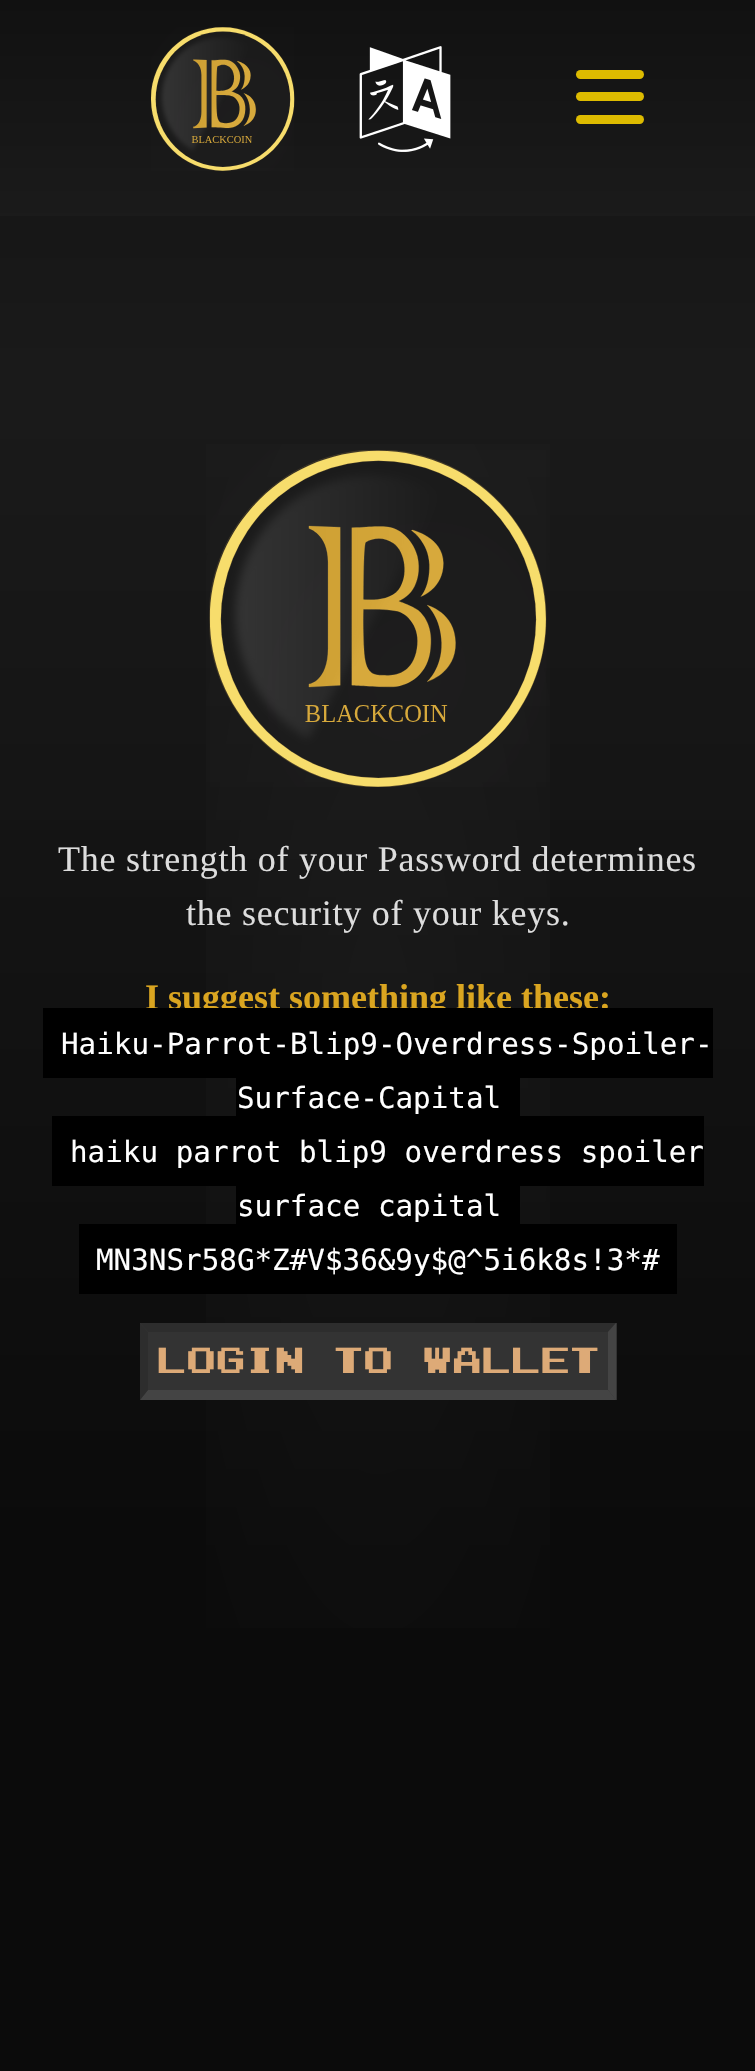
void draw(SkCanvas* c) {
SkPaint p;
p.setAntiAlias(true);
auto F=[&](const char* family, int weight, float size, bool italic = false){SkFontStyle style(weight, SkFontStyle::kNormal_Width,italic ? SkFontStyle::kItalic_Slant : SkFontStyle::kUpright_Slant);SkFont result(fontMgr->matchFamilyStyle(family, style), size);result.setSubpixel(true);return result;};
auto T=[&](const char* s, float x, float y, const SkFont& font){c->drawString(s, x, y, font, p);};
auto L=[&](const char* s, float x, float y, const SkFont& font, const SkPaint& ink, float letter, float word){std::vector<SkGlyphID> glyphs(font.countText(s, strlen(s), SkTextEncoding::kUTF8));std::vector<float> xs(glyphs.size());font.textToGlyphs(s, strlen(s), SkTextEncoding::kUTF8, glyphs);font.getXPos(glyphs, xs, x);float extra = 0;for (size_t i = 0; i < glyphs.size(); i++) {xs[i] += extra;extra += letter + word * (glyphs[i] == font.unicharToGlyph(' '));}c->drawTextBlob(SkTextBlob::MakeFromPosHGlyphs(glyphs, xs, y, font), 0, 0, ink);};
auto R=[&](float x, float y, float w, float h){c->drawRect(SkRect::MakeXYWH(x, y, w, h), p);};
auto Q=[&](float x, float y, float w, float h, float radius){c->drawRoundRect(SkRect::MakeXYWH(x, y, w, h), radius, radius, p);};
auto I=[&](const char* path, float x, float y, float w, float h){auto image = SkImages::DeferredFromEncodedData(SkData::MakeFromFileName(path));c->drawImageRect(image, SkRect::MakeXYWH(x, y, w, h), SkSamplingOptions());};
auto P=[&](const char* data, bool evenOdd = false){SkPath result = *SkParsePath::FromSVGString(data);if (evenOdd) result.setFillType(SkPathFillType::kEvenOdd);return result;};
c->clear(0xffffffff);
{
const SkColor colors[] = {0xff111111,0xff222222,0xff030303};
const float stops[] = {0,.1,.41};
const SkPoint ends[] = {{378,0}, {378,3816}};
p.setShader(SkGradientShader::MakeLinear(ends, colors, stops, 3, SkTileMode::kClamp));
p.setAlpha(255);
}
R(0,0,755,2071);
{
const SkColor colors[] = {0x0dffffff,0x00ffffff};
const float stops[] = {0,1};
SkMatrix m = SkMatrix::Translate(378,1036).preScale(302,1036);
p.setShader(SkGradientShader::MakeRadial({0, 0}, 1, colors, stops, 2, SkTileMode::kClamp, 0, &m));
p.setAlpha(255);
}
R(206,444,344,1184);
I("1.png",151,27,144,144);
I("2.png",359,46,92,106);
p.setShader(nullptr);
p.setColor(0xffddbb00);
Q(576,92,68,9,4.5);
Q(576,70,68,9,4.5);
Q(576,115,68,9,4.5);
p.setColor(0x80111111);
R(0,216,755,1855);
I("3.png",209,450,338,337);
auto f1 = F("Liberation Serif",400,36);
p.setColor(0xffdddddd);
L("The strength of your Password determines",58,871,f1,p,.75,0);
L("the security of your keys.",186,925,f1,p,.75,0);
auto f2 = F("Liberation Serif",700,36);
p.setColor(0xffdaa520);
T("I suggest something like these:",145,1009,f2);
p.setColor(0xff000000);
R(43,1008,670,70);
auto f3 = F("DejaVu Sans Mono",400,29.25);
p.setColor(0xffffffff);
T("Haiku-Parrot-Blip9-Overdress-Spoiler-",61,1054,f3);
p.setColor(0xff000000);
R(236,1078,284,38);
p.setColor(0xffffffff);
T("Surface-Capital",237,1108,f3);
p.setColor(0xff000000);
R(52,1116,652,70);
p.setColor(0xffffffff);
T("haiku parrot blip9 overdress spoiler",70,1162,f3);
p.setColor(0xff000000);
R(236,1186,284,38);
p.setColor(0xffffffff);
T("surface capital",237,1216,f3);
p.setColor(0xff000000);
R(79,1224,598,70);
p.setColor(0xffffffff);
T("MN3NSr58G*Z#V$36&9y$@^5i6k8s!3*#",96,1270,f3);
p.setColor(0xff333333);
R(140,1323,477,77);
p.setColor(0xff2d2d2d);
c->drawPath(P("M140 1323h476l-8 9h-460z"),p);
p.setColor(0xff444444);
c->drawPath(P("M616 1323v77l-8-10v-58z"),p);
c->drawPath(P("M616 1400h-476l8-10h460z"),p);
p.setColor(0xff2d2d2d);
c->drawPath(P("M140 1400v-77l8 9v58z"),p);
auto f4 = F("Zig",400,36);
p.setColor(0xffddaa77);
L("LOGIN TO WALLET",157,1373,f4,p,.75,0);
}
